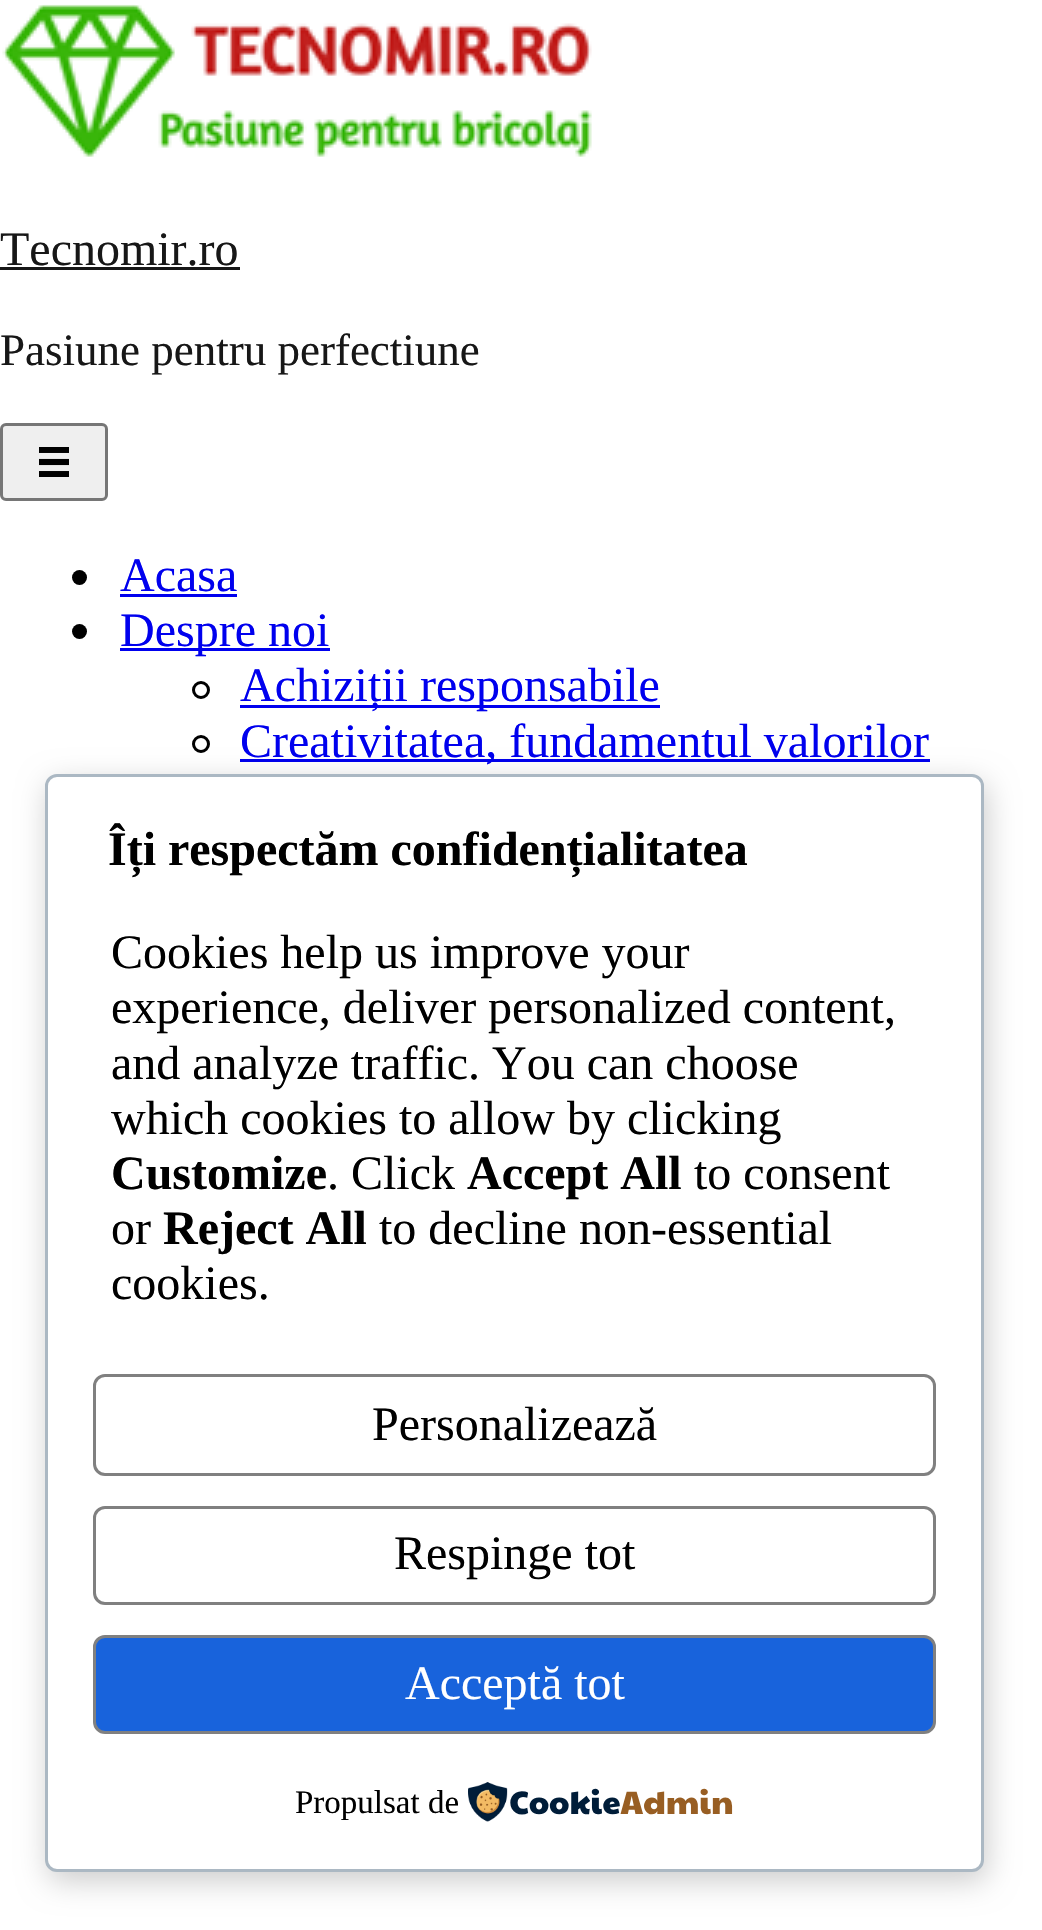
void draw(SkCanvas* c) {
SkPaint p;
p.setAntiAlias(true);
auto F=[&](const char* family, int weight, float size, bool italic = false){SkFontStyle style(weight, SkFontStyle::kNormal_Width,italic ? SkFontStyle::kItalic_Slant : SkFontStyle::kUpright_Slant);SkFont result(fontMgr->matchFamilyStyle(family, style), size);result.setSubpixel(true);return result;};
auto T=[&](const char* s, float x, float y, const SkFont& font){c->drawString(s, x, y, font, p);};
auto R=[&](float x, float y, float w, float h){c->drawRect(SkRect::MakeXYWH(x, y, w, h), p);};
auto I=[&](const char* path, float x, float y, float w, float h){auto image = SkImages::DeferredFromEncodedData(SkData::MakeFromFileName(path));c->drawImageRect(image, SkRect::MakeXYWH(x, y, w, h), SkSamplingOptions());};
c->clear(0xffffffff);
I("1.png",2,4,590,153);
auto f1 = F("Liberation Serif",400,48);
p.setColor(0xff171717);
T("Tecnomir.ro",0,265,f1);
R(0,267,240,3);
auto f2 = F("Liberation Serif",400,45);
T("Pasiune pentru perfectiune",0,365,f2);
p.setColor(0xffefefef);
c->drawRoundRect(SkRect::MakeXYWH(1.5,424.5,105,75),4.5,4.5,p);
p.setStroke(true);
p.setStrokeWidth(3);
p.setColor(0xff767676);
c->drawRoundRect(SkRect::MakeXYWH(1.5,424.5,105,75),4.5,4.5,p);
I("2.png",39,447,30,30);
p.setStroke(false);
p.setColor(0xff000000);
c->drawCircle(79.5,577.5,7.5,p);
p.setColor(0xff0000ee);
T("Acasa",120,591,f1);
R(120,594,117,3);
p.setColor(0xff000000);
c->drawCircle(79.5,631.5,7.5,p);
p.setColor(0xff0000ee);
R(120,648,210,3);
T("Despre noi",120,646,f1);
p.setStroke(true);
p.setColor(0xff000000);
c->drawCircle(201,690,7.5,p);
p.setStroke(false);
p.setColor(0xff0000ee);
R(240,705,420,3);
T("Achiziții responsabile",240,701,f1);
p.setStroke(true);
p.setColor(0xff000000);
c->drawCircle(201,744,7.5,p);
p.setStroke(false);
p.setColor(0xff0000ee);
R(240,759,690,3);
T("Creativitatea, fundamentul valorilor",240,757,f1);
p.setColor(0x33000000);
p.setMaskFilter(SkMaskFilter::MakeBlur(kNormal_SkBlurStyle, 15));
c->drawRoundRect(SkRect::MakeXYWH(48,783,939,1098),12,12,p);
p.setMaskFilter(nullptr);
p.setColor(0xffffffff);
c->drawRoundRect(SkRect::MakeXYWH(46.5,775.5,936,1095),10.5,10.5,p);
p.setStroke(true);
p.setColor(0xffabb8c3);
c->drawRoundRect(SkRect::MakeXYWH(46.5,775.5,936,1095),10.5,10.5,p);
auto f3 = F("Liberation Serif",700,48);
p.setStroke(false);
p.setColor(0xff000000);
T("Îți respectăm confidențialitatea",108,865,f3);
T("Cookies help us improve your",111,968,f1);
T("experience, deliver personalized content,",111,1023,f1);
T("and analyze traffic. You can choose",111,1079,f1);
T("which cookies to allow by clicking",111,1134,f1);
T("Customize",111,1189,f3);
T(". Click",327,1189,f1);
T("Accept All",467,1189,f3);
T("to consent",694,1189,f1);
T("or",111,1244,f1);
T("Reject All",163,1244,f3);
T("to decline non-essential",379,1244,f1);
T("cookies.",111,1299,f1);
p.setStroke(true);
p.setColor(0xff808080);
c->drawRoundRect(SkRect::MakeXYWH(94.5,1375.5,840,99),10.5,10.5,p);
p.setStroke(false);
p.setColor(0xff000000);
T("Personalizează",372,1440,f1);
p.setStroke(true);
p.setColor(0xff808080);
c->drawRoundRect(SkRect::MakeXYWH(94.5,1507.5,840,96),10.5,10.5,p);
p.setStroke(false);
p.setColor(0xff000000);
T("Respinge tot",394,1569,f1);
p.setColor(0xff1863dc);
c->drawRoundRect(SkRect::MakeXYWH(94.5,1636.5,840,96),10.5,10.5,p);
p.setStroke(true);
p.setColor(0xff808080);
c->drawRoundRect(SkRect::MakeXYWH(94.5,1636.5,840,96),10.5,10.5,p);
p.setStroke(false);
p.setColor(0xffffffff);
T("Acceptă tot",405,1699,f1);
auto f4 = F("Liberation Serif",400,33);
p.setColor(0xff000000);
T("Propulsat de",295,1813,f4);
I("3.png",468,1782,265,40);
}
